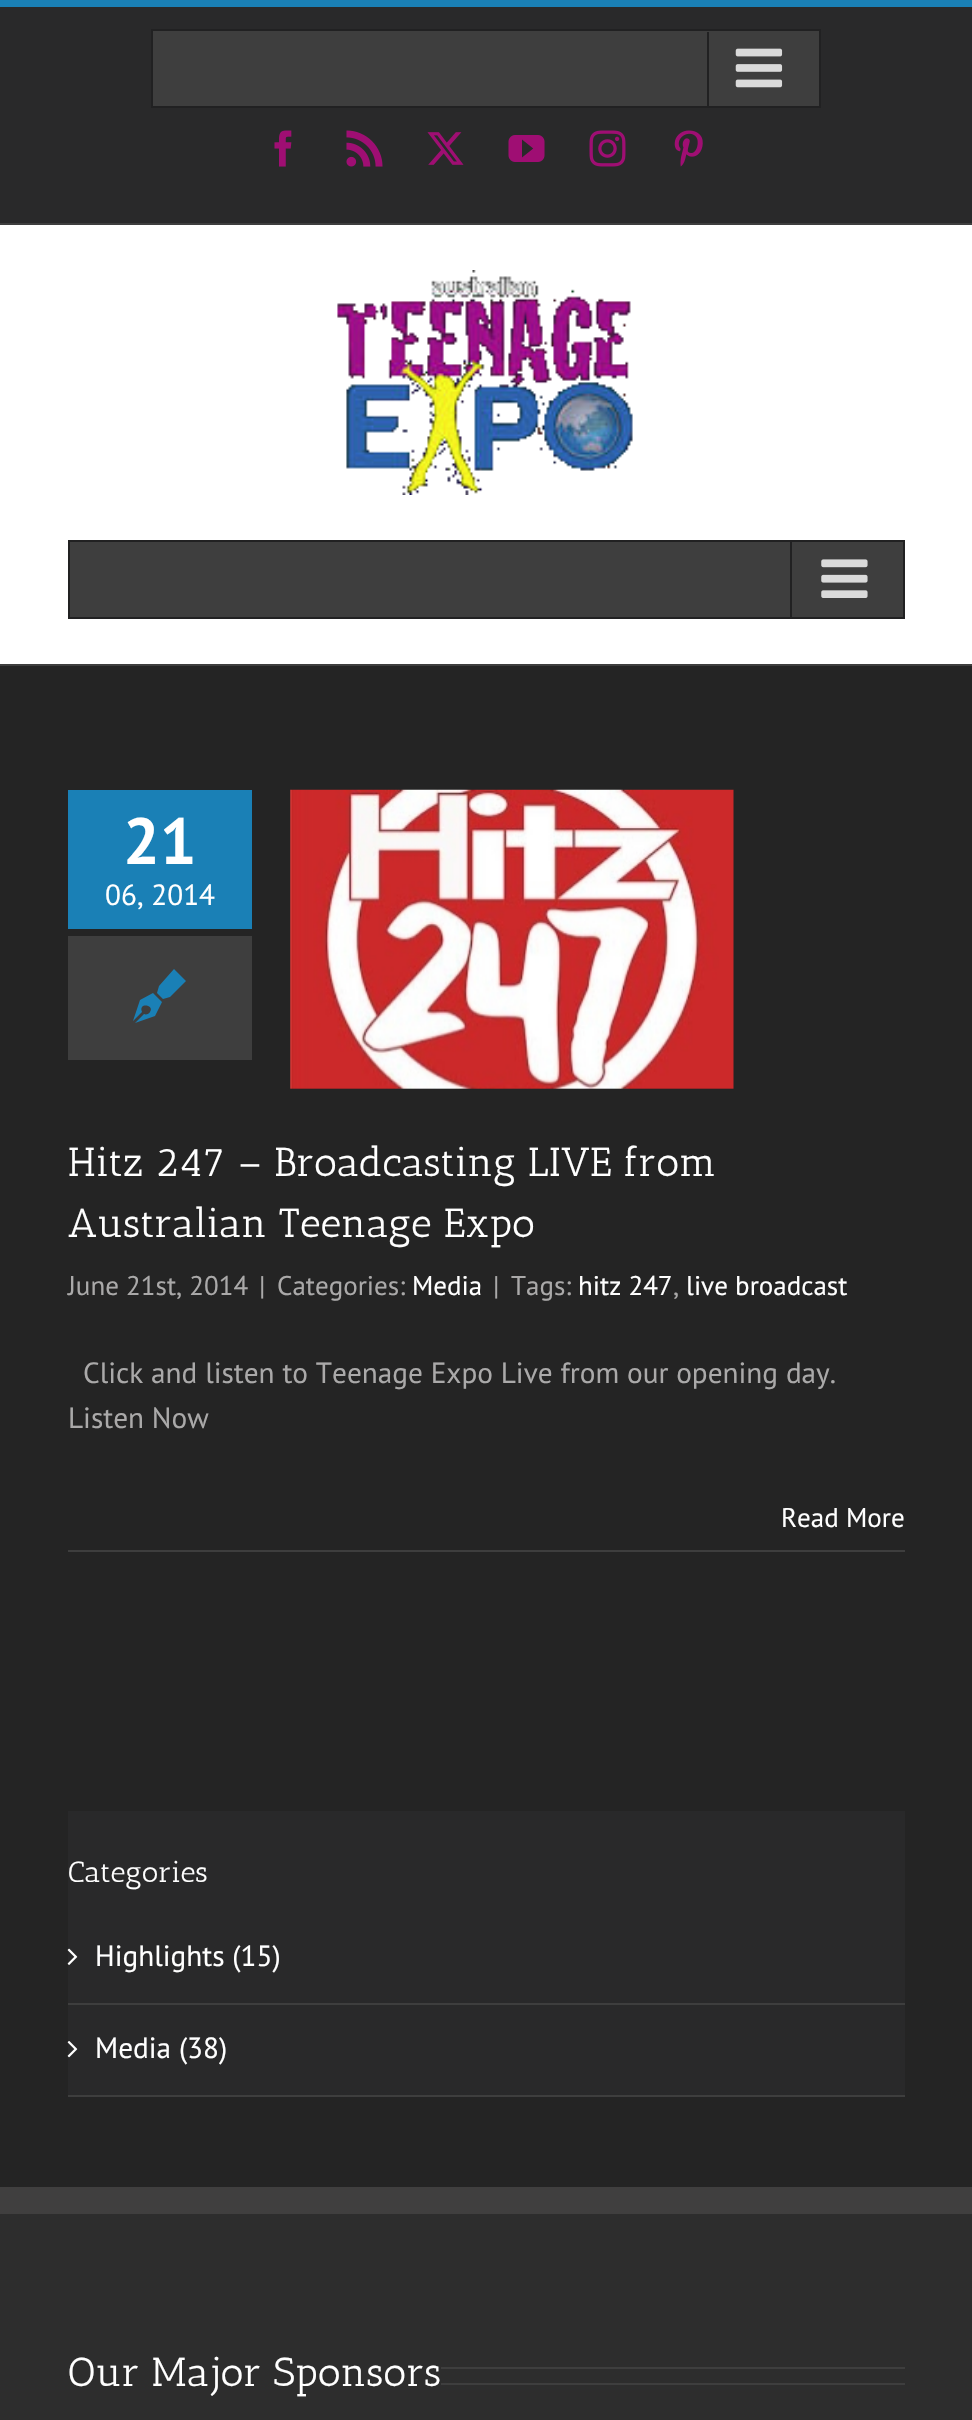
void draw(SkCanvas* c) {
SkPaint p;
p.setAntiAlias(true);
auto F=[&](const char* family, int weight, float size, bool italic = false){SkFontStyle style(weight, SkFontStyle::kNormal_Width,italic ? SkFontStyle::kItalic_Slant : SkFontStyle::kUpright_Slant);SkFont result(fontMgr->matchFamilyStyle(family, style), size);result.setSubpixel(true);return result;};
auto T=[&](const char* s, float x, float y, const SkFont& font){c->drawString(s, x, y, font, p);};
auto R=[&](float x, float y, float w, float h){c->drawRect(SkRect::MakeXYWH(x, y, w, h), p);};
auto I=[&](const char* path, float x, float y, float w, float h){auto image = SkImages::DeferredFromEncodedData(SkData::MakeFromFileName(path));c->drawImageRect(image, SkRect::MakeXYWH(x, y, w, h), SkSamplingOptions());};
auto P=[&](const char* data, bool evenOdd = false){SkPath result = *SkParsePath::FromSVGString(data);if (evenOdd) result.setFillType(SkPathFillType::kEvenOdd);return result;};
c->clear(0xff242424);
p.setColor(0xff29292a);
R(0,7,972,216);
p.setColor(0xff1a80b6);
R(0,0,972,7);
p.setColor(0xff3e3e3e);
R(0,223,972,2);
c->drawRect(SkRect::MakeXYWH(152,30,668,77),p);
p.setStroke(true);
p.setStrokeWidth(2);
p.setColor(0xff212122);
c->drawRect(SkRect::MakeXYWH(152,30,668,77),p);
p.setStroke(false);
R(707,32,2,74);
I("1.png",735,48,48,40);
I("2.png",274,130,18,37);
I("3.png",346,130,37,37);
I("4.png",427,132,37,33);
I("5.png",508,135,37,27);
I("6.png",589,130,37,37);
I("7.png",674,130,29,37);
p.setColor(0xffffffff);
R(0,225,972,439);
p.setColor(0xff3e3e3e);
R(0,664,972,2);
I("8.png",337,270,296,225);
c->drawRect(SkRect::MakeXYWH(69,541,835,77),p);
p.setStroke(true);
p.setColor(0xff212122);
c->drawRect(SkRect::MakeXYWH(69,541,835,77),p);
p.setStroke(false);
R(790,542,2,75);
I("9.png",821,559,47,39);
p.setColor(0xff1a80b6);
R(68,790,184,139);
auto f1 = F("PT Sans",700,65);
p.setColor(0xffffffff);
T("21",123,864,f1);
auto f2 = F("PT Sans",400,29.25);
T("06, 2014",105,905,f2);
p.setColor(0xff3e3e3e);
R(68,936,184,124);
p.setColor(0xff1a80b6);
c->drawPath(P("M140 1000l-7 21l9-9c-4-10 13-7 8 0c-1 2-4 3-6 2l-9 9l20-7l7-14l-9-9zm34-31l-15 17l-2 7l6 6l7-2l16-16z"),p);
I("10.png",290,789,444,300);
auto f3 = F("Antic Slab",400,40.5);
p.setColor(0xffffffff);
T("Hitz 247 – Broadcasting LIVE from",68,1176,f3);
T("Australian Teenage Expo",68,1237,f3);
auto f4 = F("PT Sans",400,27);
p.setColor(0xffaaa9a9);
T("June 21st, 2014",68,1295,f4);
T("|",259,1295,f4);
T("Categories:",277,1295,f4);
p.setColor(0xffffffff);
T("Media",412,1295,f4);
p.setColor(0xffaaa9a9);
T("|",493,1295,f4);
T("Tags:",511,1295,f4);
p.setColor(0xffffffff);
T("hitz 247",578,1295,f4);
p.setColor(0xffaaa9a9);
T(",",673,1295,f4);
p.setColor(0xffffffff);
T("live broadcast",686,1295,f4);
p.setColor(0xffaaa9a9);
T("Click and listen to Teenage Expo Live from our opening day.",83,1383,f2);
T("Listen Now",68,1428,f2);
p.setColor(0xff3e3e3e);
R(68,1550,837,2);
p.setColor(0xffffffff);
T("Read More",781,1527,f4);
p.setColor(0xff29292a);
R(68,1811,837,284);
auto f5 = F("Antic Slab",400,29.25);
p.setColor(0xffffffff);
T("Categories",68,1882,f5);
p.setColor(0xff3e3e3e);
R(68,2003,837,2);
I("11.png",67,1948,11,17);
p.setColor(0xffffffff);
T("Highlights (15)",95,1966,f2);
p.setColor(0xff3e3e3e);
R(68,2095,837,2);
I("12.png",67,2041,11,17);
p.setColor(0xffffffff);
T("Media (38)",95,2058,f2);
p.setColor(0xff2d2d2d);
R(0,2214,972,206);
p.setColor(0xff403f3f);
R(0,2187,972,27);
p.setColor(0xffffffff);
T("Our Major Sponsors",68,2386,f3);
p.setColor(0xff3e3e3e);
R(441,2367,464,2);
R(441,2383,464,2);
}
